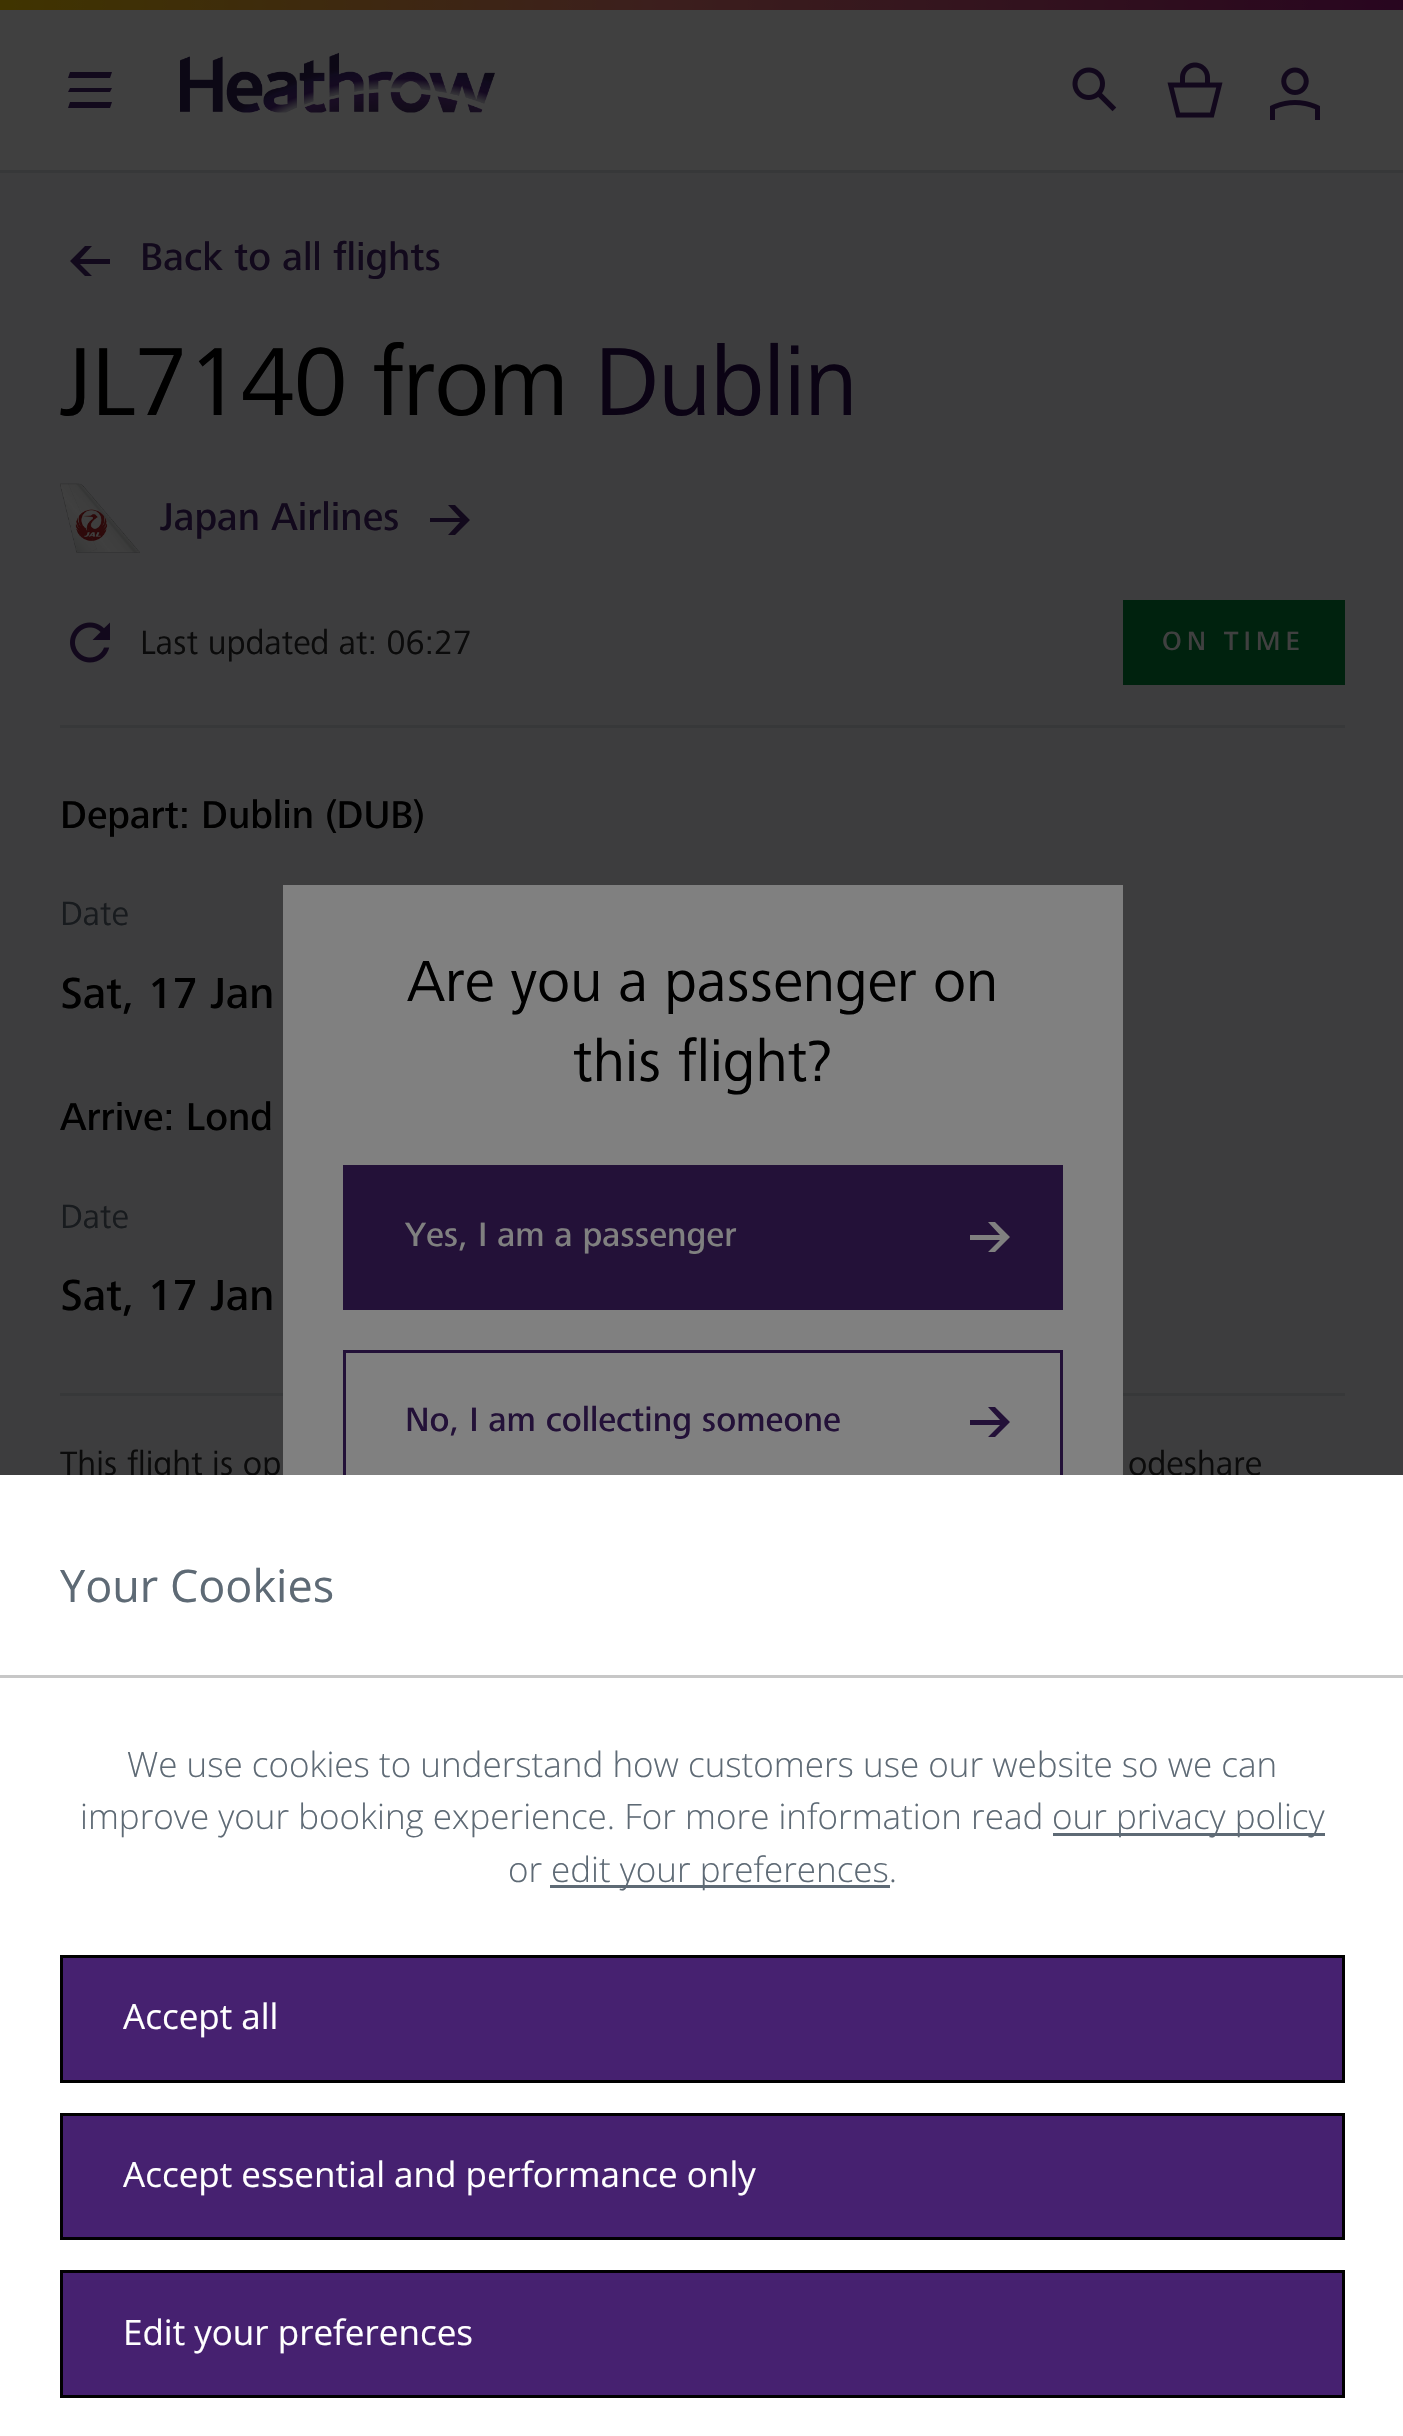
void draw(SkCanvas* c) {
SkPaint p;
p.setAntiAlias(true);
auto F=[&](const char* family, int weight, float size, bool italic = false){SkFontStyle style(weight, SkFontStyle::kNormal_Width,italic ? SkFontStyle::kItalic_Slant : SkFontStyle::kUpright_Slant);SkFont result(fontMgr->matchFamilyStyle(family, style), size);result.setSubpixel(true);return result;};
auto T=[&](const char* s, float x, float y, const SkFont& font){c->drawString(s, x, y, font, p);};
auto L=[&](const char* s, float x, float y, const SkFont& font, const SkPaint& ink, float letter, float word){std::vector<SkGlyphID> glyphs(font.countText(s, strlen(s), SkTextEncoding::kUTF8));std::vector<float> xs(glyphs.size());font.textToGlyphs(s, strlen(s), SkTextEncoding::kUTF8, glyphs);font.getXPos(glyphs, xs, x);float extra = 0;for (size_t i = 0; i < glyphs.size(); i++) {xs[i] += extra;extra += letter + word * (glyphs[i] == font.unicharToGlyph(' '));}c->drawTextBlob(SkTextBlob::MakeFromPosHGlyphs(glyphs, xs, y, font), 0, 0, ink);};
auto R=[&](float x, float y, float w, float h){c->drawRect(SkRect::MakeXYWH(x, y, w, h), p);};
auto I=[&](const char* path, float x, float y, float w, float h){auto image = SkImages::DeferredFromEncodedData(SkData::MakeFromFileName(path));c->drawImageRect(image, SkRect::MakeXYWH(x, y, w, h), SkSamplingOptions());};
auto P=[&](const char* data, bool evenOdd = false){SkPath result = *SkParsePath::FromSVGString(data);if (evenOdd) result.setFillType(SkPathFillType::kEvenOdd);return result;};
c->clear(0xff3d3d3e);
p.setColor(0xff373839);
R(0,170,1403,3);
p.setColor(0xff404040);
R(0,10,1403,160);
I("1.png",0,0,1403,10);
p.setColor(0xff12091c);
c->drawPath(P("M70 88h42l-2 4h-42zm0 14h42l-2 6h-42zm0-30h42l-2 6h-42z",true),p);
I("2.png",180,52,315,61);
I("3.png",1072,67,45,45);
I("4.png",1167,62,56,56);
I("5.png",1270,67,50,53);
c->drawPath(P("M85 246l-15 15l15 15h7l-12-12h30v-5h-30l12-13z",true),p);
auto f1 = F("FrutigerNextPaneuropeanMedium",500,40);
T("Back to all flights",140,270,f1);
auto f2 = F("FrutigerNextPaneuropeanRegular",400,100);
p.setColor(0xff000000);
L("JL7140 from",60,415,f2,p,-1.25,0);
p.setColor(0xff0b0314);
L("Dublin",594,415,f2,p,-1.25,0);
I("6.png",60,483,80,70);
p.setColor(0xff12091c);
T("Japan Airlines",160,530,f1);
c->drawPath(P("M448 505l12 13h-30v4h30l-12 13h7l15-15l-15-15z",true),p);
p.setColor(0xff373839);
R(60,725,1285,3);
I("7.png",70,622,40,41);
auto f3 = F("FrutigerNextPaneuropeanRegular",400,35);
p.setColor(0xff0b0b0b);
T("Last updated at: 06:27",140,654,f3);
p.setColor(0xff00220e);
R(1123,600,222,85);
auto f4 = F("FrutigerNextPaneuropeanMedium",500,27.5);
p.setColor(0xff404040);
L("ON TIME",1162,650,f4,p,5,0);
p.setColor(0xff373839);
R(60,1393,1285,3);
p.setColor(0xff000000);
T("Depart: Dublin (DUB)",60,828,f1);
p.setColor(0xff181b1e);
T("Date",60,925,f3);
auto f5 = F("FrutigerNextPaneuropeanMedium",500,45);
p.setColor(0xff000000);
T("Sat, 17 Jan",60,1008,f5);
T("Arrive: Lond",60,1130,f1);
p.setColor(0xff181b1e);
T("Date",60,1228,f3);
p.setColor(0xff000000);
T("Sat, 17 Jan",60,1310,f5);
p.setColor(0xff0b0b0b);
T("This flight is op",60,1475,f3);
T("odeshare",1128,1475,f3);
p.setColor(0xff808080);
R(283,885,840,590);
auto f6 = F("FrutigerNextPaneuropeanRegular",400,60);
p.setColor(0xff000000);
T("Are you a passenger on",407,1001,f6);
T("this flight?",573,1081,f6);
p.setColor(0xff231138);
c->drawRect(SkRect::MakeXYWH(344.5,1166.5,717,142),p);
p.setStroke(true);
p.setStrokeWidth(3);
c->drawRect(SkRect::MakeXYWH(344.5,1166.5,717,142),p);
auto f7 = F("FrutigerNextPaneuropeanMedium",500,35);
p.setStroke(false);
p.setColor(0xff808080);
T("Yes, I am a passenger",405,1246,f7);
c->drawPath(P("M988 1222l12 13h-30v5h30l-12 12h7l15-15l-15-15z",true),p);
p.setStroke(true);
p.setColor(0xff231138);
c->drawRect(SkRect::MakeXYWH(344.5,1351.5,717,142),p);
p.setStroke(false);
T("No, I am collecting someone",405,1431,f7);
c->drawPath(P("M988 1407l12 13h-30v5h30l-12 12h7l15-15l-15-15z",true),p);
p.setColor(0xffffffff);
R(0,1475,1403,961);
p.setColor(0xffc7c7c7);
R(0,1675,1403,3);
auto f8 = F("Open Sans",400,45);
p.setColor(0xff5e6a75);
T("Your Cookies",60,1602,f8);
auto f9 = F("Open Sans",300,35);
T("We use cookies to understand how customers use our website so we can",127,1777,f9);
T("improve your booking experience. For more information read",80,1829,f9);
R(1053,1833,272,3);
T("our privacy policy",1052,1829,f9);
T("or",508,1882,f9);
R(550,1885,340,3);
T("edit your preferences.",551,1882,f9);
p.setColor(0xff462170);
c->drawRect(SkRect::MakeXYWH(61.5,1956.5,1282,125),p);
p.setStroke(true);
p.setColor(0xff000000);
c->drawRect(SkRect::MakeXYWH(61.5,1956.5,1282,125),p);
auto f10 = F("Open Sans",400,35);
p.setStroke(false);
p.setColor(0xffffffff);
T("Accept all",123,2029,f10);
p.setColor(0xff462170);
c->drawRect(SkRect::MakeXYWH(61.5,2114.5,1282,124),p);
p.setStroke(true);
p.setColor(0xff000000);
c->drawRect(SkRect::MakeXYWH(61.5,2114.5,1282,124),p);
p.setStroke(false);
p.setColor(0xffffffff);
T("Accept essential and performance only",123,2187,f10);
p.setColor(0xff462170);
c->drawRect(SkRect::MakeXYWH(61.5,2271.5,1282,125),p);
p.setStroke(true);
p.setColor(0xff000000);
c->drawRect(SkRect::MakeXYWH(61.5,2271.5,1282,125),p);
p.setStroke(false);
p.setColor(0xffffffff);
T("Edit your preferences",123,2345,f10);
}
